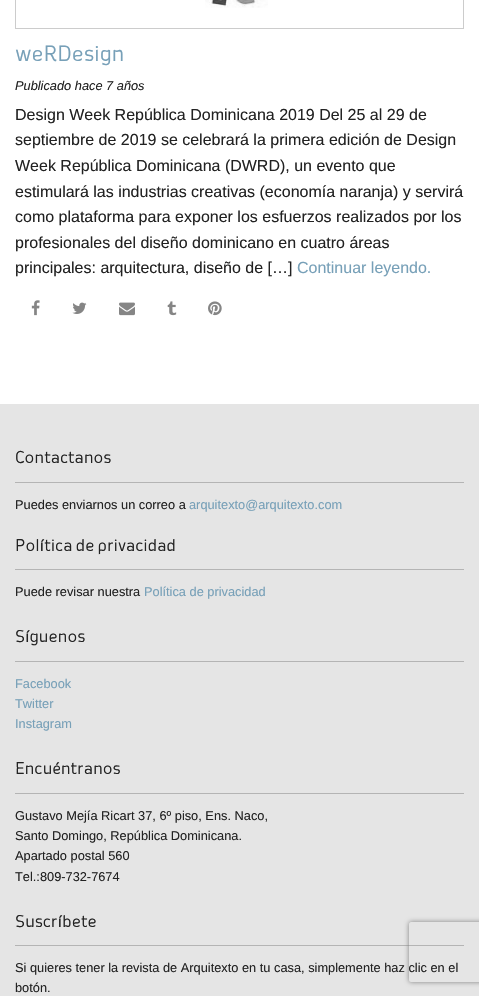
void draw(SkCanvas* c) {
SkPaint p;
p.setAntiAlias(true);
auto F=[&](const char* family, int weight, float size, bool italic = false){SkFontStyle style(weight, SkFontStyle::kNormal_Width,italic ? SkFontStyle::kItalic_Slant : SkFontStyle::kUpright_Slant);SkFont result(fontMgr->matchFamilyStyle(family, style), size);result.setSubpixel(true);return result;};
auto T=[&](const char* s, float x, float y, const SkFont& font){c->drawString(s, x, y, font, p);};
auto R=[&](float x, float y, float w, float h){c->drawRect(SkRect::MakeXYWH(x, y, w, h), p);};
auto I=[&](const char* path, float x, float y, float w, float h){auto image = SkImages::DeferredFromEncodedData(SkData::MakeFromFileName(path));c->drawImageRect(image, SkRect::MakeXYWH(x, y, w, h), SkSamplingOptions());};
auto P=[&](const char* data, bool evenOdd = false){SkPath result = *SkParsePath::FromSVGString(data);if (evenOdd) result.setFillType(SkPathFillType::kEvenOdd);return result;};
c->clear(0xffffffff);
I("1.png",205,0,63,8);
p.setStroke(true);
p.setStrokeWidth(1);
p.setColor(0xffcccccc);
c->drawRect(SkRect::MakeXYWH(15.5,-.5,448,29),p);
auto f1 = F("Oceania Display",400,20.75);
p.setStroke(false);
p.setColor(0xff77a0b8);
T("weRDesign",15,61,f1);
auto f2 = F("Liberation Sans",400,12.8,true);
p.setColor(0xff222222);
T("Publicado hace 7 años",15,90,f2);
auto f3 = F("Liberation Sans",400,16);
T("Design Week República Dominicana 2019 Del 25 al 29 de",15,120,f3);
T("septiembre de 2019 se celebrará la primera edición de Design",15,145,f3);
T("Week República Dominicana (DWRD), un evento que",15,171,f3);
T("estimulará las industrias creativas (economía naranja) y servirá",15,197,f3);
T("como plataforma para exponer los esfuerzos realizados por los",15,222,f3);
T("profesionales del diseño dominicano en cuatro áreas",15,248,f3);
T("principales: arquitectura, diseño de […]",15,273,f3);
p.setColor(0xff77a0b8);
T("Continuar leyendo.",297,273,f3);
I("2.png",31,300,9,16);
I("3.png",72,302,15,12);
I("4.png",119,302,16,14);
I("5.png",167,301,10,15);
I("6.png",208,301,14,15);
p.setColor(0xffe5e5e5);
R(0,404,479,592);
p.setColor(0xffb4b4b4);
R(15,482,449,1);
auto f4 = F("Oceania Display",400,16);
p.setColor(0xff222222);
T("Contactanos",15,463,f4);
auto f5 = F("Liberation Sans",400,12.8);
T("Puedes enviarnos un correo a",15,509,f5);
p.setColor(0xff77a0b8);
T("arquitexto@arquitexto.com",189,509,f5);
p.setColor(0xffb4b4b4);
R(15,569,449,1);
p.setColor(0xff222222);
T("Política de privacidad",15,551,f4);
T("Puede revisar nuestra",15,596,f5);
p.setColor(0xff77a0b8);
T("Política de privacidad",144,596,f5);
p.setColor(0xffb4b4b4);
R(15,661,449,1);
p.setColor(0xff222222);
T("Síguenos",15,642,f4);
p.setColor(0xff77a0b8);
T("Facebook",15,688,f5);
T("Twitter",15,708,f5);
T("Instagram",15,728,f5);
p.setColor(0xffb4b4b4);
R(15,793,449,1);
p.setColor(0xff222222);
T("Encuéntranos",15,774,f4);
T("Gustavo Mejía Ricart 37, 6º piso, Ens. Naco,",15,820,f5);
T("Santo Domingo, República Dominicana.",15,840,f5);
T("Apartado postal 560",15,860,f5);
T("Tel.:809-732-7674",15,881,f5);
p.setColor(0xffb4b4b4);
R(15,945,449,1);
p.setColor(0xff222222);
T("Suscríbete",15,927,f4);
T("Si quieres tener la revista de Arquitexto en tu casa, simplemente haz clic en el",15,972,f5);
T("botón.",15,992,f5);
c->save();
c->clipPath(P("M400 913h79v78h-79zm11 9h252c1 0 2 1 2 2v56c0 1-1 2-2 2h-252c-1 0-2-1-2-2v-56c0-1 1-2 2-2z",true),true);
p.setColor(0xff808080);
p.setMaskFilter(SkMaskFilter::MakeBlur(kNormal_SkBlurStyle, 2.5));
c->drawRoundRect(SkRect::MakeXYWH(409,922,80,60),2,2,p);
p.setMaskFilter(nullptr);
c->restore();
}
